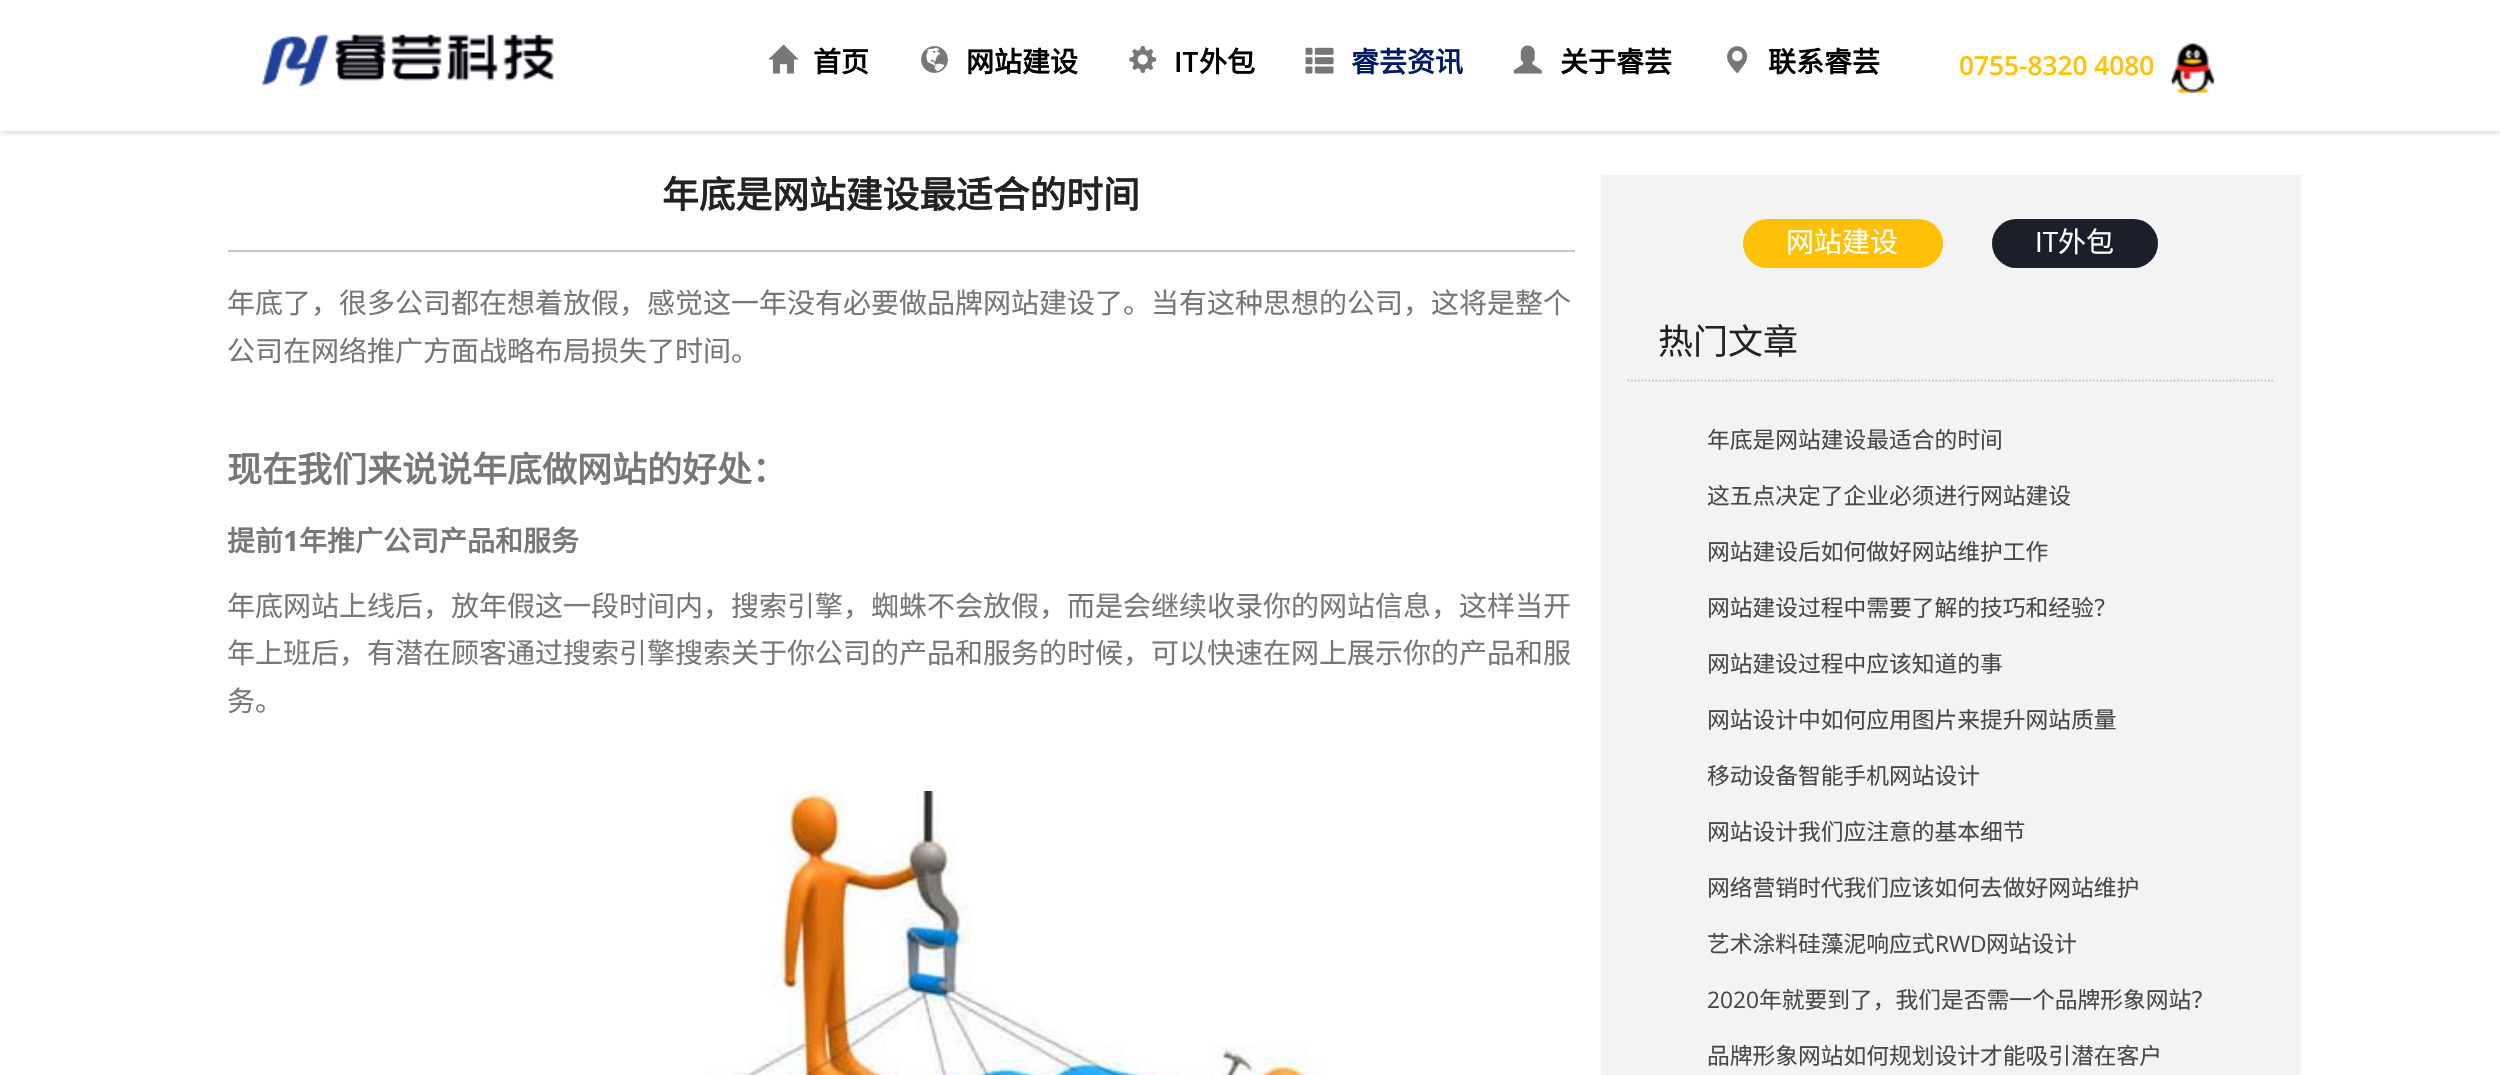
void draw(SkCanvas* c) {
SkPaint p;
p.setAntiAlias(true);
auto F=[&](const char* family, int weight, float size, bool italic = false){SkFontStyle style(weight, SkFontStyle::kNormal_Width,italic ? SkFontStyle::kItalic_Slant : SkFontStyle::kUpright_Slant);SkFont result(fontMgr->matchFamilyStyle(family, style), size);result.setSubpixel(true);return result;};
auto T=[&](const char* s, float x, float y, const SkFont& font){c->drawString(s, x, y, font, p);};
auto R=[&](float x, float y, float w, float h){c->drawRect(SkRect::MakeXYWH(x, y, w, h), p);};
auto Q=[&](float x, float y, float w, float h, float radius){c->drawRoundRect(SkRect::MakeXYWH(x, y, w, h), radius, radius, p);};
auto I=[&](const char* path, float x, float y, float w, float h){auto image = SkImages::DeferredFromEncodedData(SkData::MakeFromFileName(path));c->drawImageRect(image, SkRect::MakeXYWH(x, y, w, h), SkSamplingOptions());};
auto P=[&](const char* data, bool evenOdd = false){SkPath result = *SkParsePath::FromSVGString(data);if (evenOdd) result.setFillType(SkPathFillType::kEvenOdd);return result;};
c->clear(0xffffffff);
c->save();
c->clipRect(SkRect::MakeXYWH(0,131,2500,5));
p.setColor(0x26000000);
p.setMaskFilter(SkMaskFilter::MakeBlur(kNormal_SkBlurStyle, 2.5));
c->drawRect(SkRect::MakeXYWH(0,2,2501,131),p);
p.setMaskFilter(nullptr);
c->restore();
I("1.png",262,34,292,53);
I("2.png",768,44,31,30);
auto f1 = F("Noto Sans CJK SC",700,28);
p.setColor(0xff000000);
T("首页",813,72,f1);
I("3.png",921,46,27,27);
T("网站建设",966,72,f1);
I("4.png",1129,46,28,27);
auto f2 = F("Open Sans",600,28);
T("IT",1174,72,f2);
T("外包",1199,72,f1);
I("5.png",1305,47,29,27);
p.setColor(0xff001a66);
T("睿芸资讯",1351,72,f1);
I("6.png",1513,45,29,29);
p.setColor(0xff000000);
T("关于睿芸",1560,72,f1);
I("7.png",1727,46,21,28);
T("联系睿芸",1768,72,f1);
auto f3 = F("Open Sans",600,26.25);
p.setColor(0xffffc107);
T("0755-8320 4080",1959,75,f3);
I("8.png",2171,43,44,50);
p.setColor(0xffc8c6c6);
R(228,250,1347,2);
auto f4 = F("Noto Sans CJK SC",700,36.75);
p.setColor(0xff222222);
T("年底是网站建设最适合的时间",662,208,f4);
auto f5 = F("Noto Sans CJK SC",400,28);
p.setColor(0xff777777);
T("年底了，很多公司都在想着放假，感觉这一年没有必要做品牌网站建设了。当有这种思想的公司，这将是整个",227,313,f5);
T("公司在网络推广方面战略布局损失了时间。",227,361,f5);
auto f6 = F("Noto Sans CJK SC",700,35);
T("现在我们来说说年底做网站的好处：",227,482,f6);
c->save();
c->clipRect(SkRect::MakeXYWH(228,252,1347,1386));
T("提前",227,551,f1);
c->restore();
auto f7 = F("Open Sans",700,28);
T("1",283,551,f7);
T("年推广公司产品和服务",299,551,f1);
T("年底网站上线后，放年假这一段时间内，搜索引擎，蜘蛛不会放假，而是会继续收录你的网站信息，这样当开",227,616,f5);
T("年上班后，有潜在顾客通过搜索引擎搜索关于你公司的产品和服务的时候，可以快速在网上展示你的产品和服",227,663,f5);
T("务。",227,711,f5);
I("9.png",705,791,616,284);
p.setColor(0xfff3f3f3);
R(1601,175,700,900);
p.setColor(0xffffc107);
Q(1743,219,200,49,24.5);
p.setColor(0xffffffff);
T("网站建设",1786,252,f5);
p.setColor(0xff1b1f29);
Q(1992,219,166,49,24.5);
auto f8 = F("Open Sans",400,28);
p.setColor(0xffffffff);
T("IT",2035,252,f8);
T("外包",2058,252,f5);
p.setStroke(true);
p.setStrokeWidth(1.8);
p.setColor(0xffc3c6cd);
p.setPathEffect(SkDashPathEffect::Make({{1.75f,1.75f}}, 0));
c->drawPath(P("M1627.5 380.5h647.5"),p);
p.setPathEffect(nullptr);
auto f9 = F("Noto Sans CJK SC",400,35);
p.setStroke(false);
p.setColor(0xff222222);
T("热门文章",1658,354,f9);
auto f10 = F("Noto Sans CJK SC",400,22.75);
p.setColor(0xff484848);
T("年底是网站建设最适合的时间",1707,448,f10);
T("这五点决定了企业必须进行网站建设",1707,504,f10);
T("网站建设后如何做好网站维护工作",1707,560,f10);
T("网站建设过程中需要了解的技巧和经验？",1707,616,f10);
T("网站建设过程中应该知道的事",1707,672,f10);
T("网站设计中如何应用图片来提升网站质量",1707,728,f10);
T("移动设备智能手机网站设计",1707,784,f10);
T("网站设计我们应注意的基本细节",1707,840,f10);
T("网络营销时代我们应该如何去做好网站维护",1707,896,f10);
T("艺术涂料硅藻泥响应式",1707,952,f10);
auto f11 = F("Open Sans",400,22.75);
T("RWD",1935,952,f11);
T("网站设计",1986,952,f10);
T("2020",1707,1008,f11);
T("年就要到了，我们是否需一个品牌形象网站？",1759,1008,f10);
T("品牌形象网站如何规划设计才能吸引潜在客户",1707,1064,f10);
}
